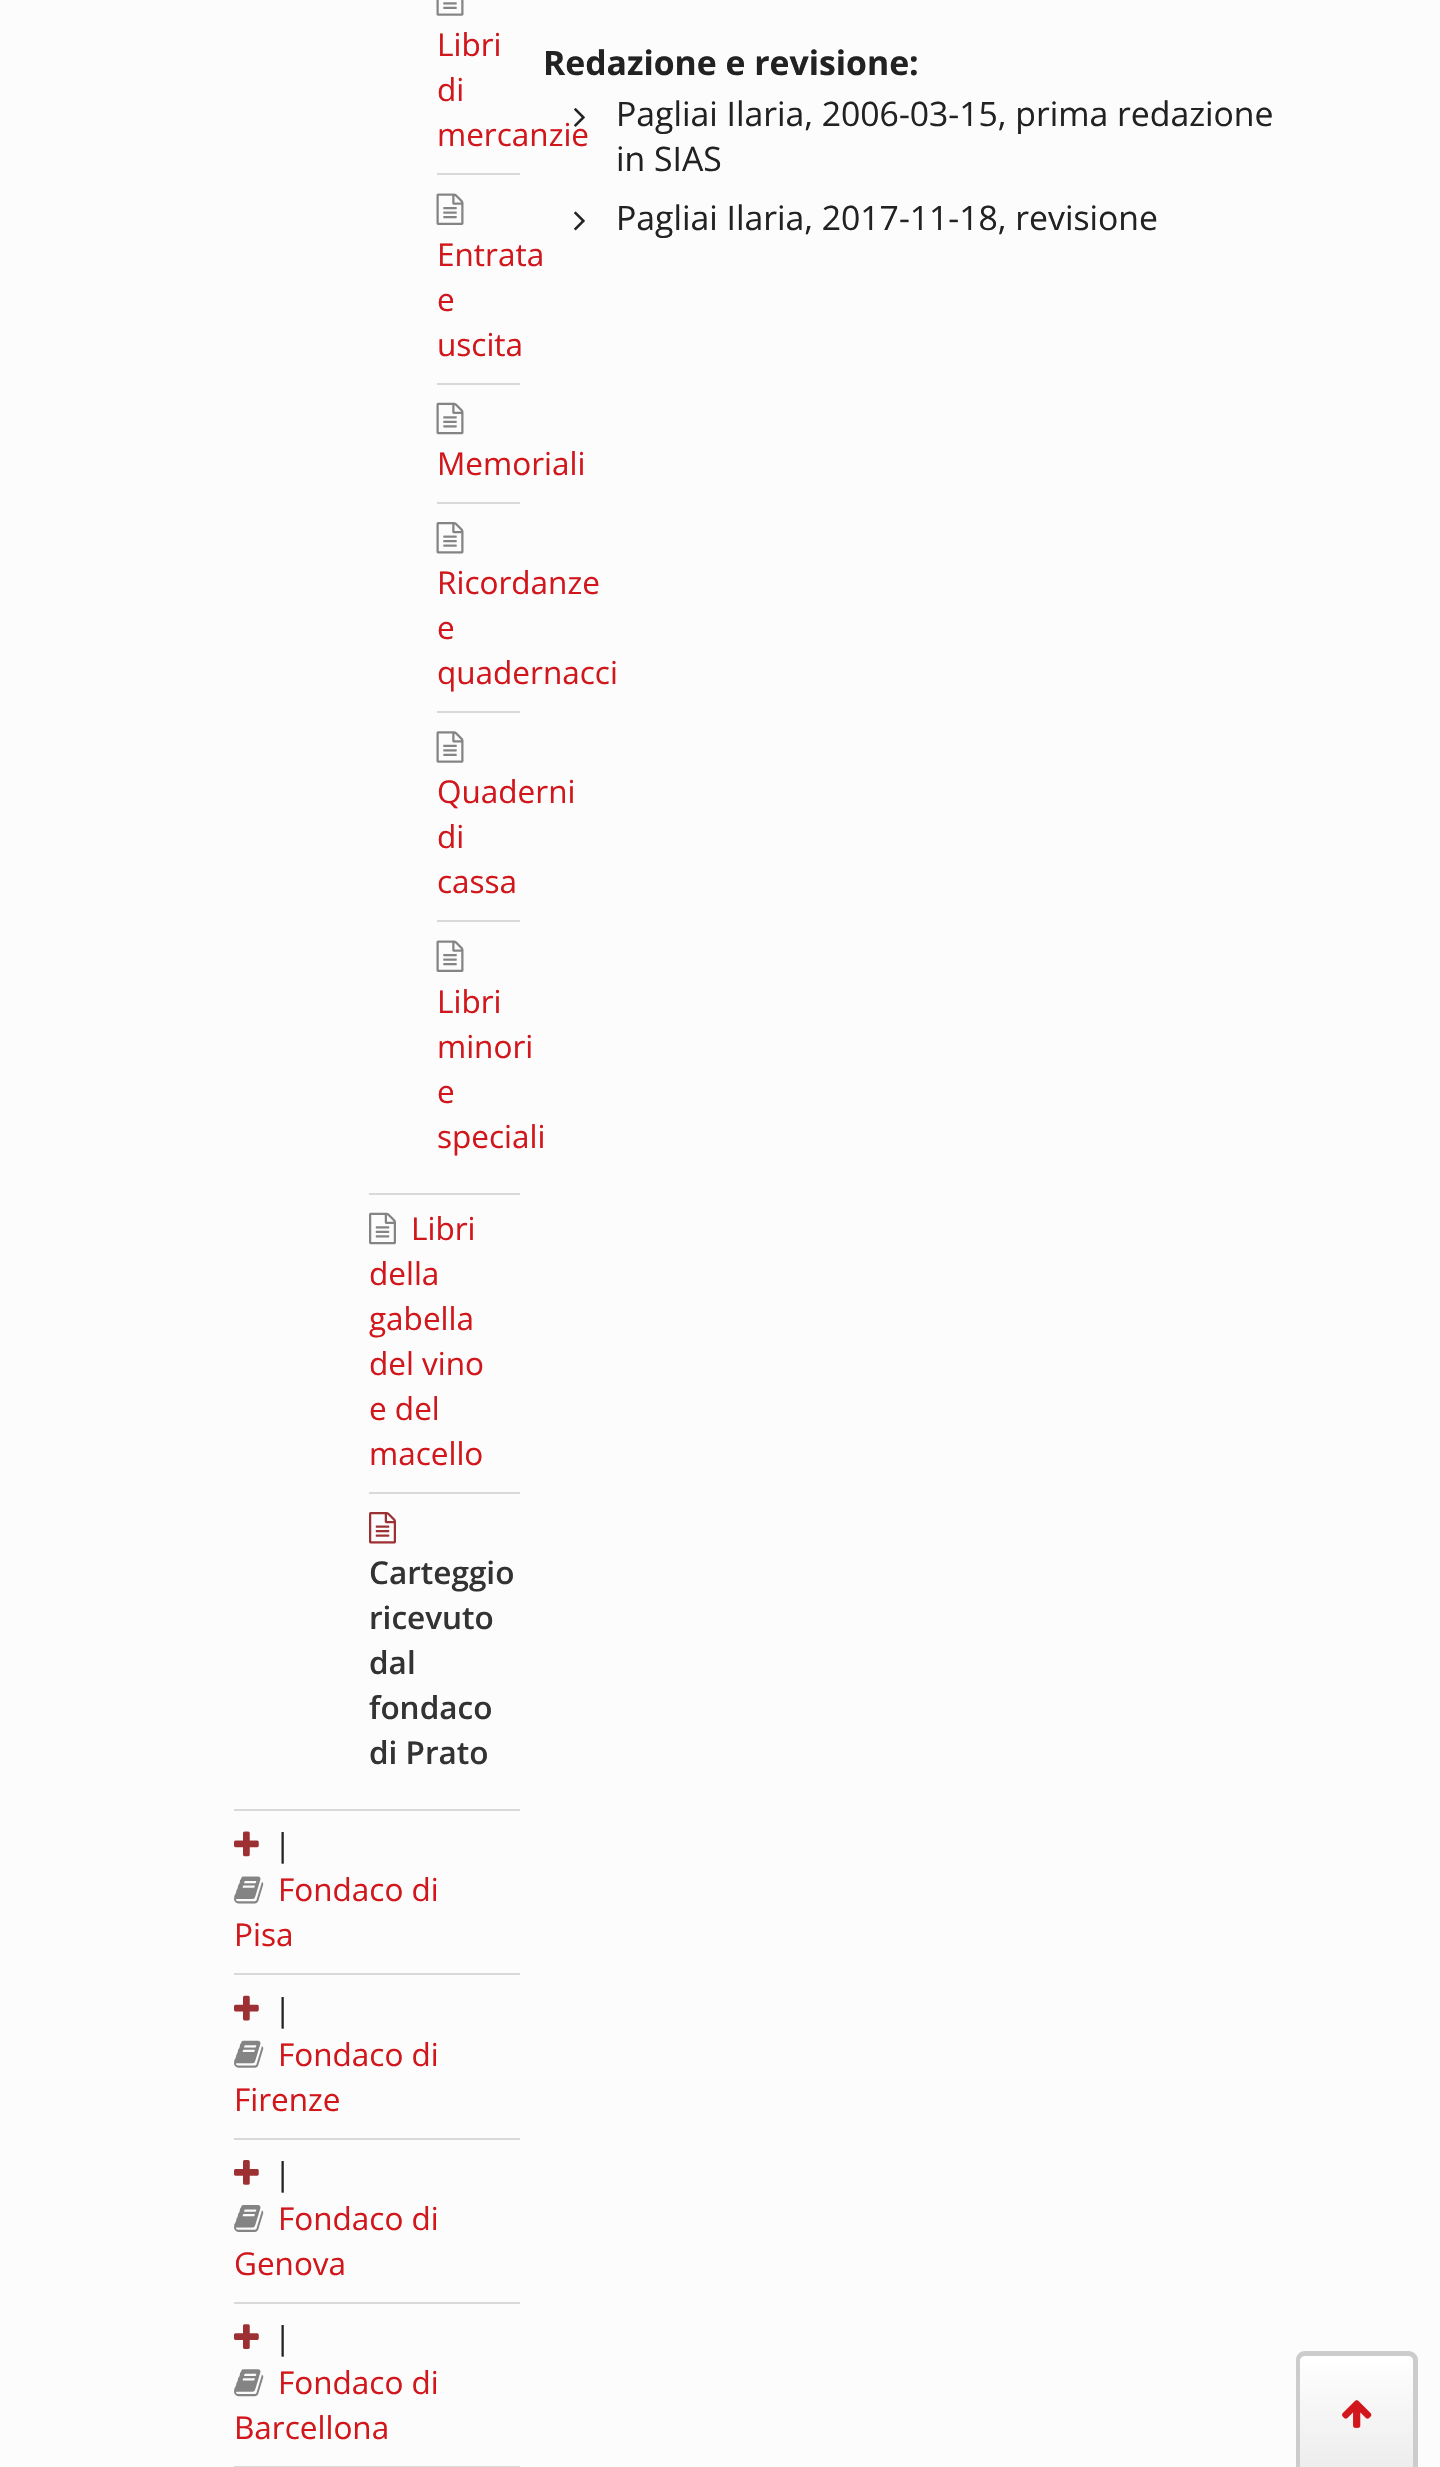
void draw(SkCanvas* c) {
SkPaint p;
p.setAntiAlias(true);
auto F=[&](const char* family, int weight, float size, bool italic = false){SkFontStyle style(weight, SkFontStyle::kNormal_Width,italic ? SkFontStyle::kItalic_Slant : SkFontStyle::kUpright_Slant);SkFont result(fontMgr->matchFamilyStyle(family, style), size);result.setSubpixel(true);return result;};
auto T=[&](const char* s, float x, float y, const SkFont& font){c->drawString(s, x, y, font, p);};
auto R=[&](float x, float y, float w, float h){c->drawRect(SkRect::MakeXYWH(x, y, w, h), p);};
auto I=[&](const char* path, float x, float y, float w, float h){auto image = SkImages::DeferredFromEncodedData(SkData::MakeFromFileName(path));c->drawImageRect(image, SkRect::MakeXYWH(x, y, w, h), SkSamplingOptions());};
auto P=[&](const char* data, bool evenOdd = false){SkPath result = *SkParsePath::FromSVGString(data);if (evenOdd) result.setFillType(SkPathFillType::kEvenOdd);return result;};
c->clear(0xfffcfcfc);
I("1.png",436,0,28,16);
auto f1 = F("Open Sans",400,31.5);
p.setColor(0xffd1171c);
T("Libri",437,56,f1);
T("di",437,101,f1);
T("mercanzie",437,146,f1);
p.setColor(0xffd9d9d9);
R(437,173,83,2);
I("2.png",436,193,28,32);
p.setColor(0xffd1171c);
T("Entrata",437,266,f1);
T("e",437,311,f1);
T("uscita",437,356,f1);
p.setColor(0xffd9d9d9);
R(437,383,83,2);
I("3.png",436,402,28,33);
p.setColor(0xffd1171c);
T("Memoriali",437,475,f1);
p.setColor(0xffd9d9d9);
R(437,502,83,2);
I("4.png",436,522,28,32);
p.setColor(0xffd1171c);
T("Ricordanze",437,594,f1);
T("e",437,639,f1);
T("quadernacci",437,684,f1);
p.setColor(0xffd9d9d9);
R(437,711,83,2);
I("5.png",436,731,28,32);
p.setColor(0xffd1171c);
T("Quaderni",437,803,f1);
T("di",437,848,f1);
T("cassa",437,893,f1);
p.setColor(0xffd9d9d9);
R(437,920,83,2);
I("2.png",436,940,28,32);
p.setColor(0xffd1171c);
T("Libri",437,1013,f1);
T("minori",437,1058,f1);
T("e",437,1103,f1);
T("speciali",437,1148,f1);
p.setColor(0xffd9d9d9);
R(369,1193,151,2);
I("6.png",369,1212,27,33);
p.setColor(0xffd1171c);
T("Libri",411,1240,f1);
T("della",369,1285,f1);
T("gabella",369,1330,f1);
T("del vino",369,1375,f1);
T("e del",369,1420,f1);
T("macello",369,1465,f1);
p.setColor(0xffd9d9d9);
R(369,1492,151,2);
I("7.png",369,1512,27,32);
auto f2 = F("Open Sans",600,31.5);
p.setColor(0xff333333);
T("Carteggio",369,1584,f2);
T("ricevuto",369,1629,f2);
T("dal",369,1674,f2);
T("fondaco",369,1719,f2);
T("di Prato",369,1764,f2);
p.setColor(0xffd9d9d9);
R(234,1809,286,2);
I("8.png",234,1831,25,26);
p.setColor(0xff222222);
T("|",274,1856,f1);
I("9.png",234,1876,30,28);
p.setColor(0xffd1171c);
T("Fondaco di",278,1901,f1);
T("Pisa",234,1946,f1);
p.setColor(0xffd9d9d9);
R(234,1973,286,2);
I("10.png",234,1995,25,26);
p.setColor(0xff222222);
T("|",274,2021,f1);
I("11.png",234,2040,30,28);
p.setColor(0xffd1171c);
T("Fondaco di",278,2066,f1);
T("Firenze",234,2111,f1);
p.setColor(0xffd9d9d9);
R(234,2138,286,2);
I("12.png",234,2160,25,25);
p.setColor(0xff222222);
T("|",274,2185,f1);
I("13.png",234,2205,30,27);
p.setColor(0xffd1171c);
T("Fondaco di",278,2230,f1);
T("Genova",234,2275,f1);
p.setColor(0xffd9d9d9);
R(234,2302,286,2);
I("14.png",234,2324,25,25);
p.setColor(0xff222222);
T("|",274,2349,f1);
I("15.png",234,2369,30,28);
p.setColor(0xffd1171c);
T("Fondaco di",278,2394,f1);
T("Barcellona",234,2439,f1);
p.setColor(0xffd9d9d9);
R(234,2466,286,1);
auto f3 = F("Open Sans",700,33.75);
p.setColor(0xff222222);
T("Redazione e revisione:",543,75,f3);
I("16.png",574,108,11,19);
auto f4 = F("Open Sans",400,33.75);
T("Pagliai Ilaria, 2006-03-15, prima redazione",616,126,f4);
T("in SIAS",616,171,f4);
I("17.png",574,211,11,20);
T("Pagliai Ilaria, 2017-11-18, revisione",616,230,f4);
c->save();
c->clipPath(P("M1305 2351h104c5 0 9 4 9 9v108h-122v-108c0-5 4-9 9-9z"),true);
{
const SkColor colors[] = {0xffffffff,0xfff6f6f6,0xffededed};
const float stops[] = {0,.47,1};
const SkPoint ends[] = {{1357,2243}, {1357,2356}};
p.setShader(SkGradientShader::MakeLinear(ends, colors, stops, 3, SkTileMode::kClamp));
p.setAlpha(255);
}
R(1296,2351,122,5);
{
const SkColor colors[] = {0xffffffff,0xfff6f6f6,0xffededed};
const float stops[] = {0,.47,1};
const SkPoint ends[] = {{1357,2356}, {1357,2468}};
p.setShader(SkGradientShader::MakeLinear(ends, colors, stops, 3, SkTileMode::kClamp));
p.setAlpha(255);
}
R(1296,2356,122,111);
c->restore();
p.setShader(nullptr);
p.setColor(0xffcccccc);
c->drawPath(P("M1305 2351h103c5 0 10 4 10 9v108h-122v-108c0-5 4-9 9-9zm0 5h103c3 0 5 2 5 4v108h-113v-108c0-2 3-4 5-4z",true),p);
I("18.png",1342,2400,30,28);
}
